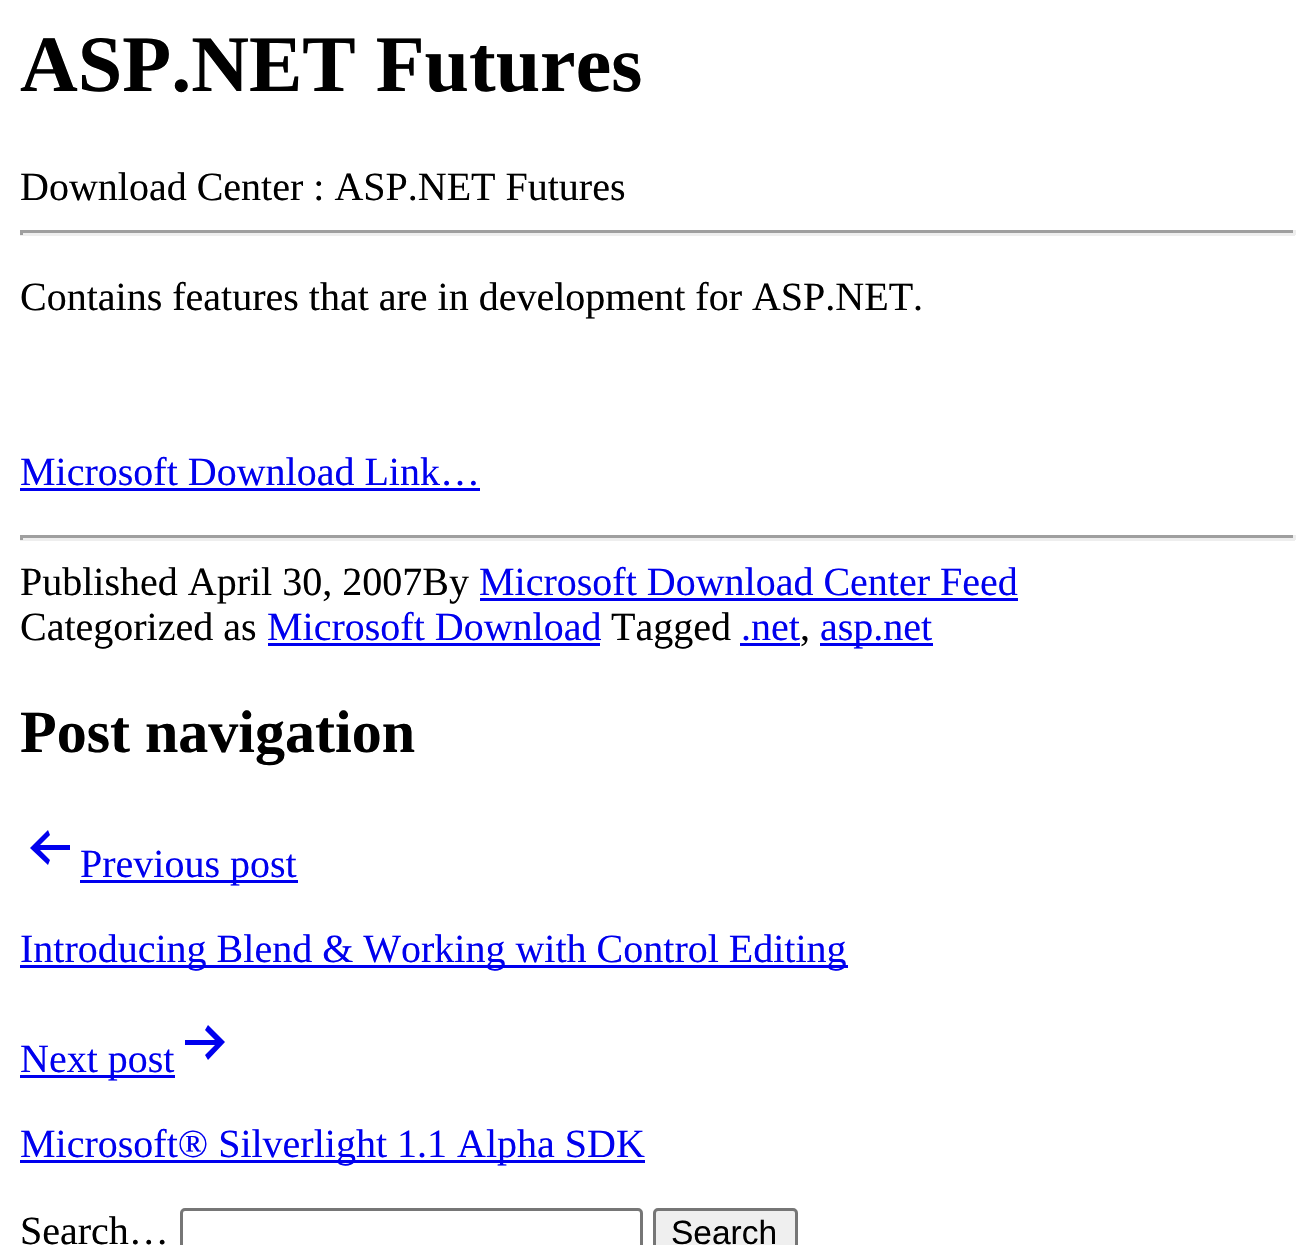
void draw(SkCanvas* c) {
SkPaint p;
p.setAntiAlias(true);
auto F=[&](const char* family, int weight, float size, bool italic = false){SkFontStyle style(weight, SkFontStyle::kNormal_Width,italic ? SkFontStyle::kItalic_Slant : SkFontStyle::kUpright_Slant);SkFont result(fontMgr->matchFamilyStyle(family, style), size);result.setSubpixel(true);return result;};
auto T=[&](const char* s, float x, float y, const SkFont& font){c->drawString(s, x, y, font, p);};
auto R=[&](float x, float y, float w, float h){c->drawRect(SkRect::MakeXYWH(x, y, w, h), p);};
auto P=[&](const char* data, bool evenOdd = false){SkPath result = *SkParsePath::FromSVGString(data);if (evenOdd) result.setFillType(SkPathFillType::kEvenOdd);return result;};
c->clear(0xffffffff);
auto f1 = F("Liberation Serif",700,80);
p.setColor(0xff000000);
T("ASP.NET Futures",20,91,f1);
auto f2 = F("Liberation Serif",400,40);
T("Download Center : ASP.NET Futures",20,200,f2);
p.setColor(0xff9f9f9f);
R(20,230,1275,3);
p.setColor(0xffeeeeee);
R(1293,230,3,5);
R(20,233,1275,3);
p.setColor(0xff9f9f9f);
R(20,230,3,5);
p.setColor(0xff000000);
T("Contains features that are in development for ASP.NET.",20,310,f2);
p.setColor(0xff0000ee);
T("Microsoft Download Link…",20,485,f2);
R(20,488,460,3);
p.setColor(0xff9f9f9f);
R(20,535,1275,3);
p.setColor(0xffeeeeee);
R(1293,535,3,5);
R(20,538,1275,3);
p.setColor(0xff9f9f9f);
R(20,535,3,5);
p.setColor(0xff000000);
T("Published April 30, 2007By",20,595,f2);
p.setColor(0xff0000ee);
T("Microsoft Download Center Feed",479,595,f2);
R(480,598,538,3);
p.setColor(0xff000000);
T("Categorized as",20,640,f2);
p.setColor(0xff0000ee);
T("Microsoft Download",267,640,f2);
R(268,643,332,3);
p.setColor(0xff000000);
T("Tagged",611,640,f2);
p.setColor(0xff0000ee);
T(".net",741,640,f2);
p.setColor(0xff000000);
T(",",800,640,f2);
p.setColor(0xff0000ee);
R(740,643,60,3);
R(820,643,113,3);
T("asp.net",820,640,f2);
auto f3 = F("Liberation Serif",700,60);
p.setColor(0xff000000);
T("Post navigation",20,752,f3);
p.setColor(0xff0000ee);
c->drawPath(P("M70 850v-5h-30l10-10l-2-5l-18 18l18 17l2-5l-10-10z",true),p);
R(80,880,218,3);
T("Previous post",80,877,f2);
R(20,965,828,3);
T("Introducing Blend & Working with Control Editing",20,962,f2);
R(20,1075,155,3);
T("Next post",20,1072,f2);
c->drawPath(P("M185 1045v-5h30l-10-10l3-5l17 17l-17 18l-3-5l10-10z",true),p);
R(20,1160,625,3);
T("Microsoft® Silverlight 1.1 Alpha SDK",20,1157,f2);
p.setColor(0xff000000);
T("Search…",20,1244,f2);
p.setStroke(true);
p.setStrokeWidth(3);
p.setColor(0xff767676);
c->drawRoundRect(SkRect::MakeXYWH(181.5,1209.5,460,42),3.5,3.5,p);
p.setStroke(false);
p.setColor(0xffefefef);
c->drawRoundRect(SkRect::MakeXYWH(654.5,1209.5,142,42),3.5,3.5,p);
p.setStroke(true);
p.setColor(0xff767676);
c->drawRoundRect(SkRect::MakeXYWH(654.5,1209.5,142,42),3.5,3.5,p);
auto f4 = F("Liberation Sans",400,33.5);
p.setStroke(false);
p.setColor(0xff000000);
T("Search",671,1244,f4);
}
